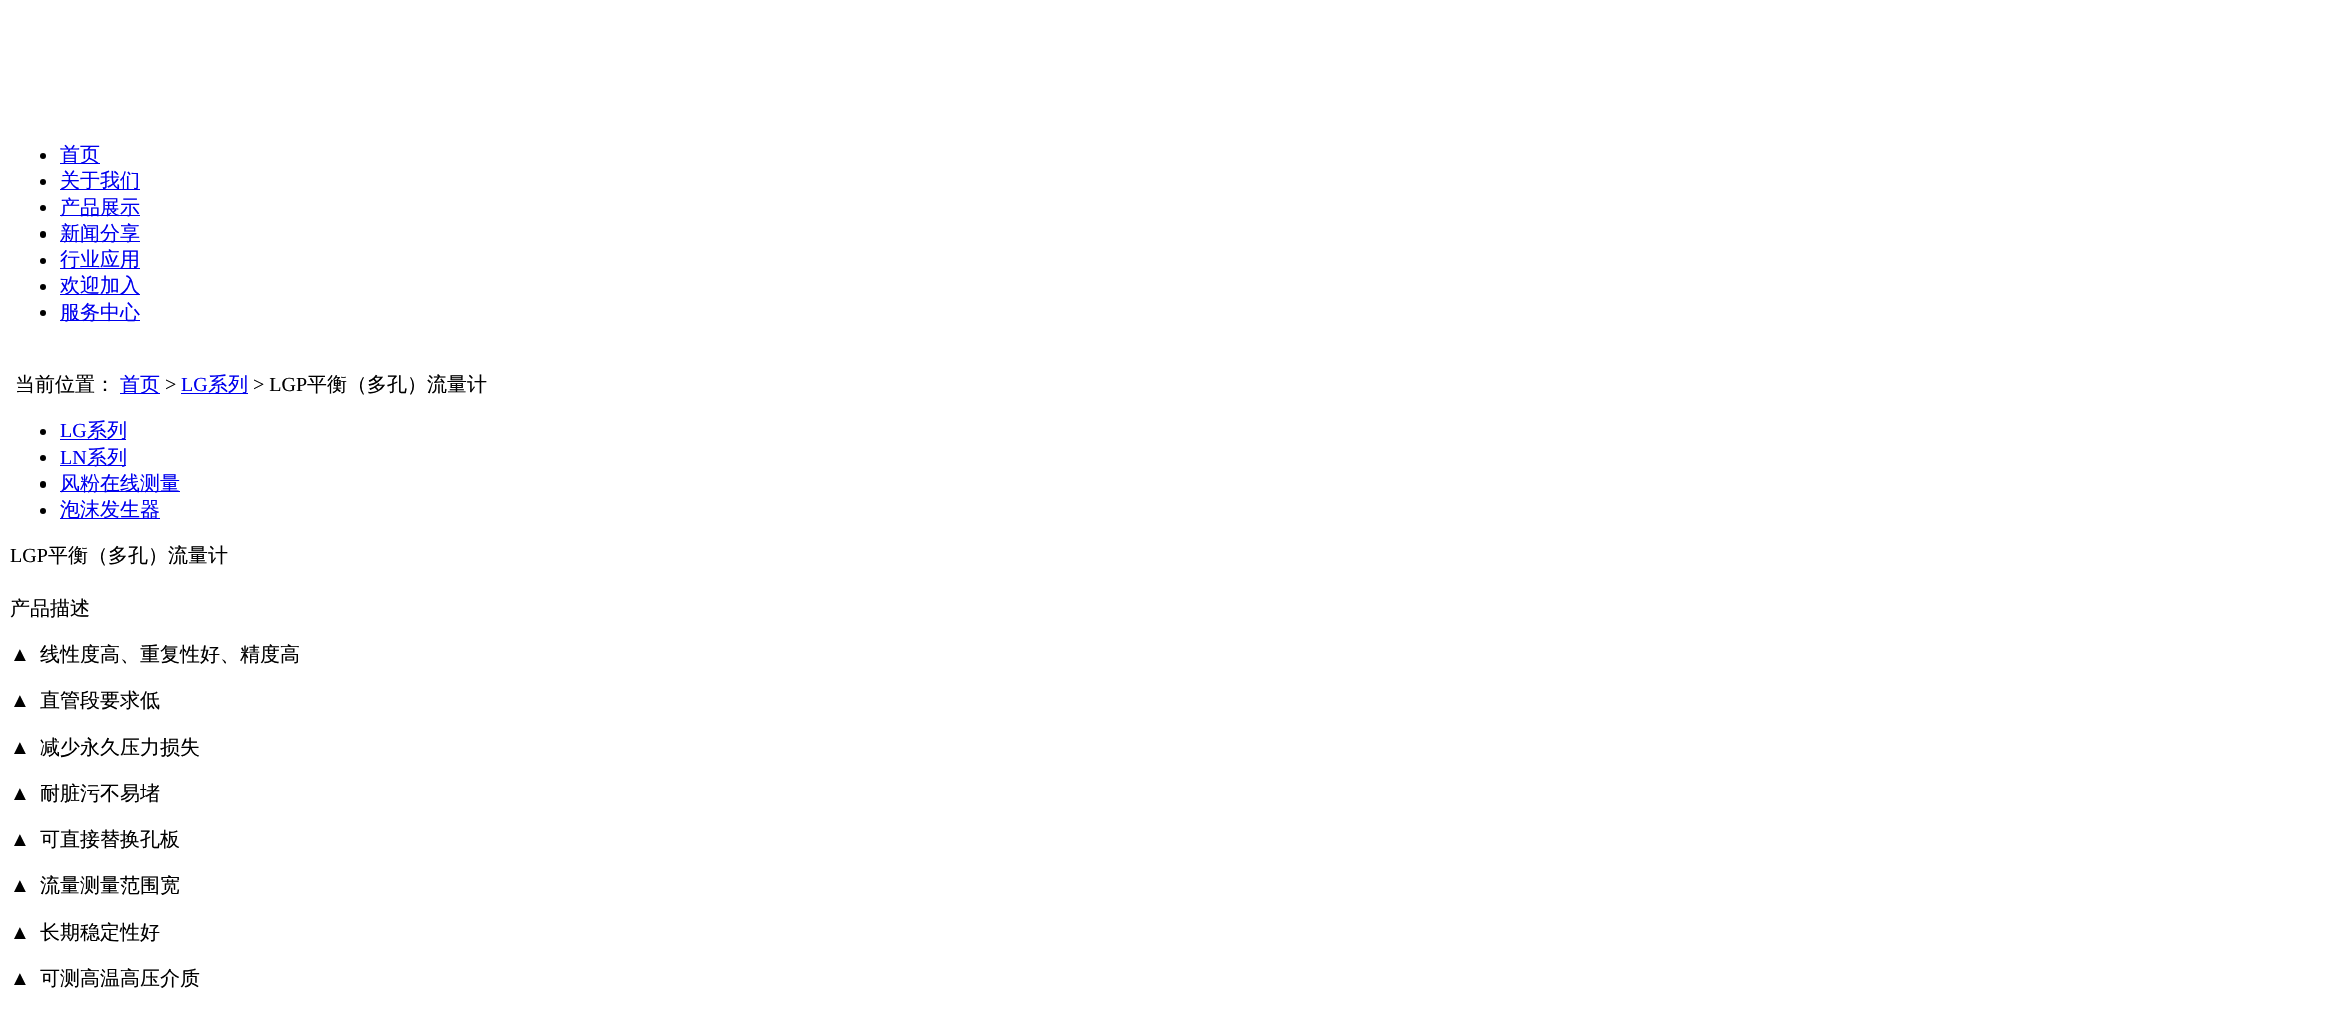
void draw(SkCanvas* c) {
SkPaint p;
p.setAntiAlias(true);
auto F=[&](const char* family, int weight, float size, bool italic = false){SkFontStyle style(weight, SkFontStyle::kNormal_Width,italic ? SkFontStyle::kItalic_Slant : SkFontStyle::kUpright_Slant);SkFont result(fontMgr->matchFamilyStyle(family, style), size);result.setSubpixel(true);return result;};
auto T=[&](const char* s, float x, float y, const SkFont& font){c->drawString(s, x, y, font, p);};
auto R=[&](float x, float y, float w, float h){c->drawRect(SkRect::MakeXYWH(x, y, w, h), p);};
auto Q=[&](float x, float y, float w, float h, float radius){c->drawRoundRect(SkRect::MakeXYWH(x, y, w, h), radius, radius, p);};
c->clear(0xffffffff);
p.setColor(0xff000000);
c->drawCircle(43,156,3,p);
p.setColor(0xff0000ee);
R(60,163,40,1);
auto f1 = F("WenQuanYi Zen Hei",500,20);
T("首页",60,161,f1);
p.setColor(0xff000000);
c->drawCircle(43,182,3,p);
p.setColor(0xff0000ee);
R(60,189,80,1);
T("关于我们",60,187,f1);
p.setColor(0xff000000);
c->drawCircle(43,208,3,p);
p.setColor(0xff0000ee);
R(60,215,80,1);
T("产品展示",60,214,f1);
p.setColor(0xff000000);
Q(40,231,6,7,3);
p.setColor(0xff0000ee);
R(60,241,80,1);
T("新闻分享",60,240,f1);
p.setColor(0xff000000);
c->drawCircle(43,261,3,p);
p.setColor(0xff0000ee);
R(60,268,80,1);
T("行业应用",60,266,f1);
p.setColor(0xff000000);
c->drawCircle(43,287,3,p);
p.setColor(0xff0000ee);
R(60,294,80,1);
T("欢迎加入",60,292,f1);
p.setColor(0xff000000);
c->drawCircle(43,313,3,p);
p.setColor(0xff0000ee);
R(60,320,80,1);
T("服务中心",60,319,f1);
p.setColor(0xff000000);
T("当前位置：",15,391,f1);
p.setColor(0xff0000ee);
R(120,393,40,1);
T("首页",120,391,f1);
auto f2 = F("Liberation Serif",400,20);
p.setColor(0xff000000);
T(">",165,391,f2);
p.setColor(0xff0000ee);
T("LG",181,391,f2);
R(181,393,67,1);
T("系列",208,391,f1);
p.setColor(0xff000000);
T("> LGP",253,391,f2);
T("平衡（多孔）流量计",307,391,f1);
c->drawCircle(43,432,3,p);
p.setColor(0xff0000ee);
T("LG",60,437,f2);
R(60,439,66,1);
T("系列",87,437,f1);
p.setColor(0xff000000);
c->drawCircle(43,458,3,p);
p.setColor(0xff0000ee);
T("LN",60,464,f2);
R(60,465,66,1);
T("系列",87,464,f1);
p.setColor(0xff000000);
Q(40,481,6,7,3);
p.setColor(0xff0000ee);
R(60,491,120,1);
T("风粉在线测量",60,490,f1);
p.setColor(0xff000000);
c->drawCircle(43,511,3,p);
p.setColor(0xff0000ee);
R(60,518,100,1);
T("泡沫发生器",60,516,f1);
p.setColor(0xff000000);
T("LGP",10,562,f2);
T("平衡（多孔）流量计",48,562,f1);
T("产品描述",10,615,f1);
T("▲",10,661,f2);
T("线性度高、重复性好、精度高",40,661,f1);
T("▲",10,707,f2);
T("直管段要求低",40,707,f1);
T("▲",10,754,f2);
T("减少永久压力损失",40,754,f1);
T("▲",10,800,f2);
T("耐脏污不易堵",40,800,f1);
T("▲",10,846,f2);
T("可直接替换孔板",40,846,f1);
T("▲",10,892,f2);
T("流量测量范围宽",40,892,f1);
T("▲",10,939,f2);
T("长期稳定性好",40,939,f1);
T("▲",10,985,f2);
T("可测高温高压介质",40,985,f1);
}
